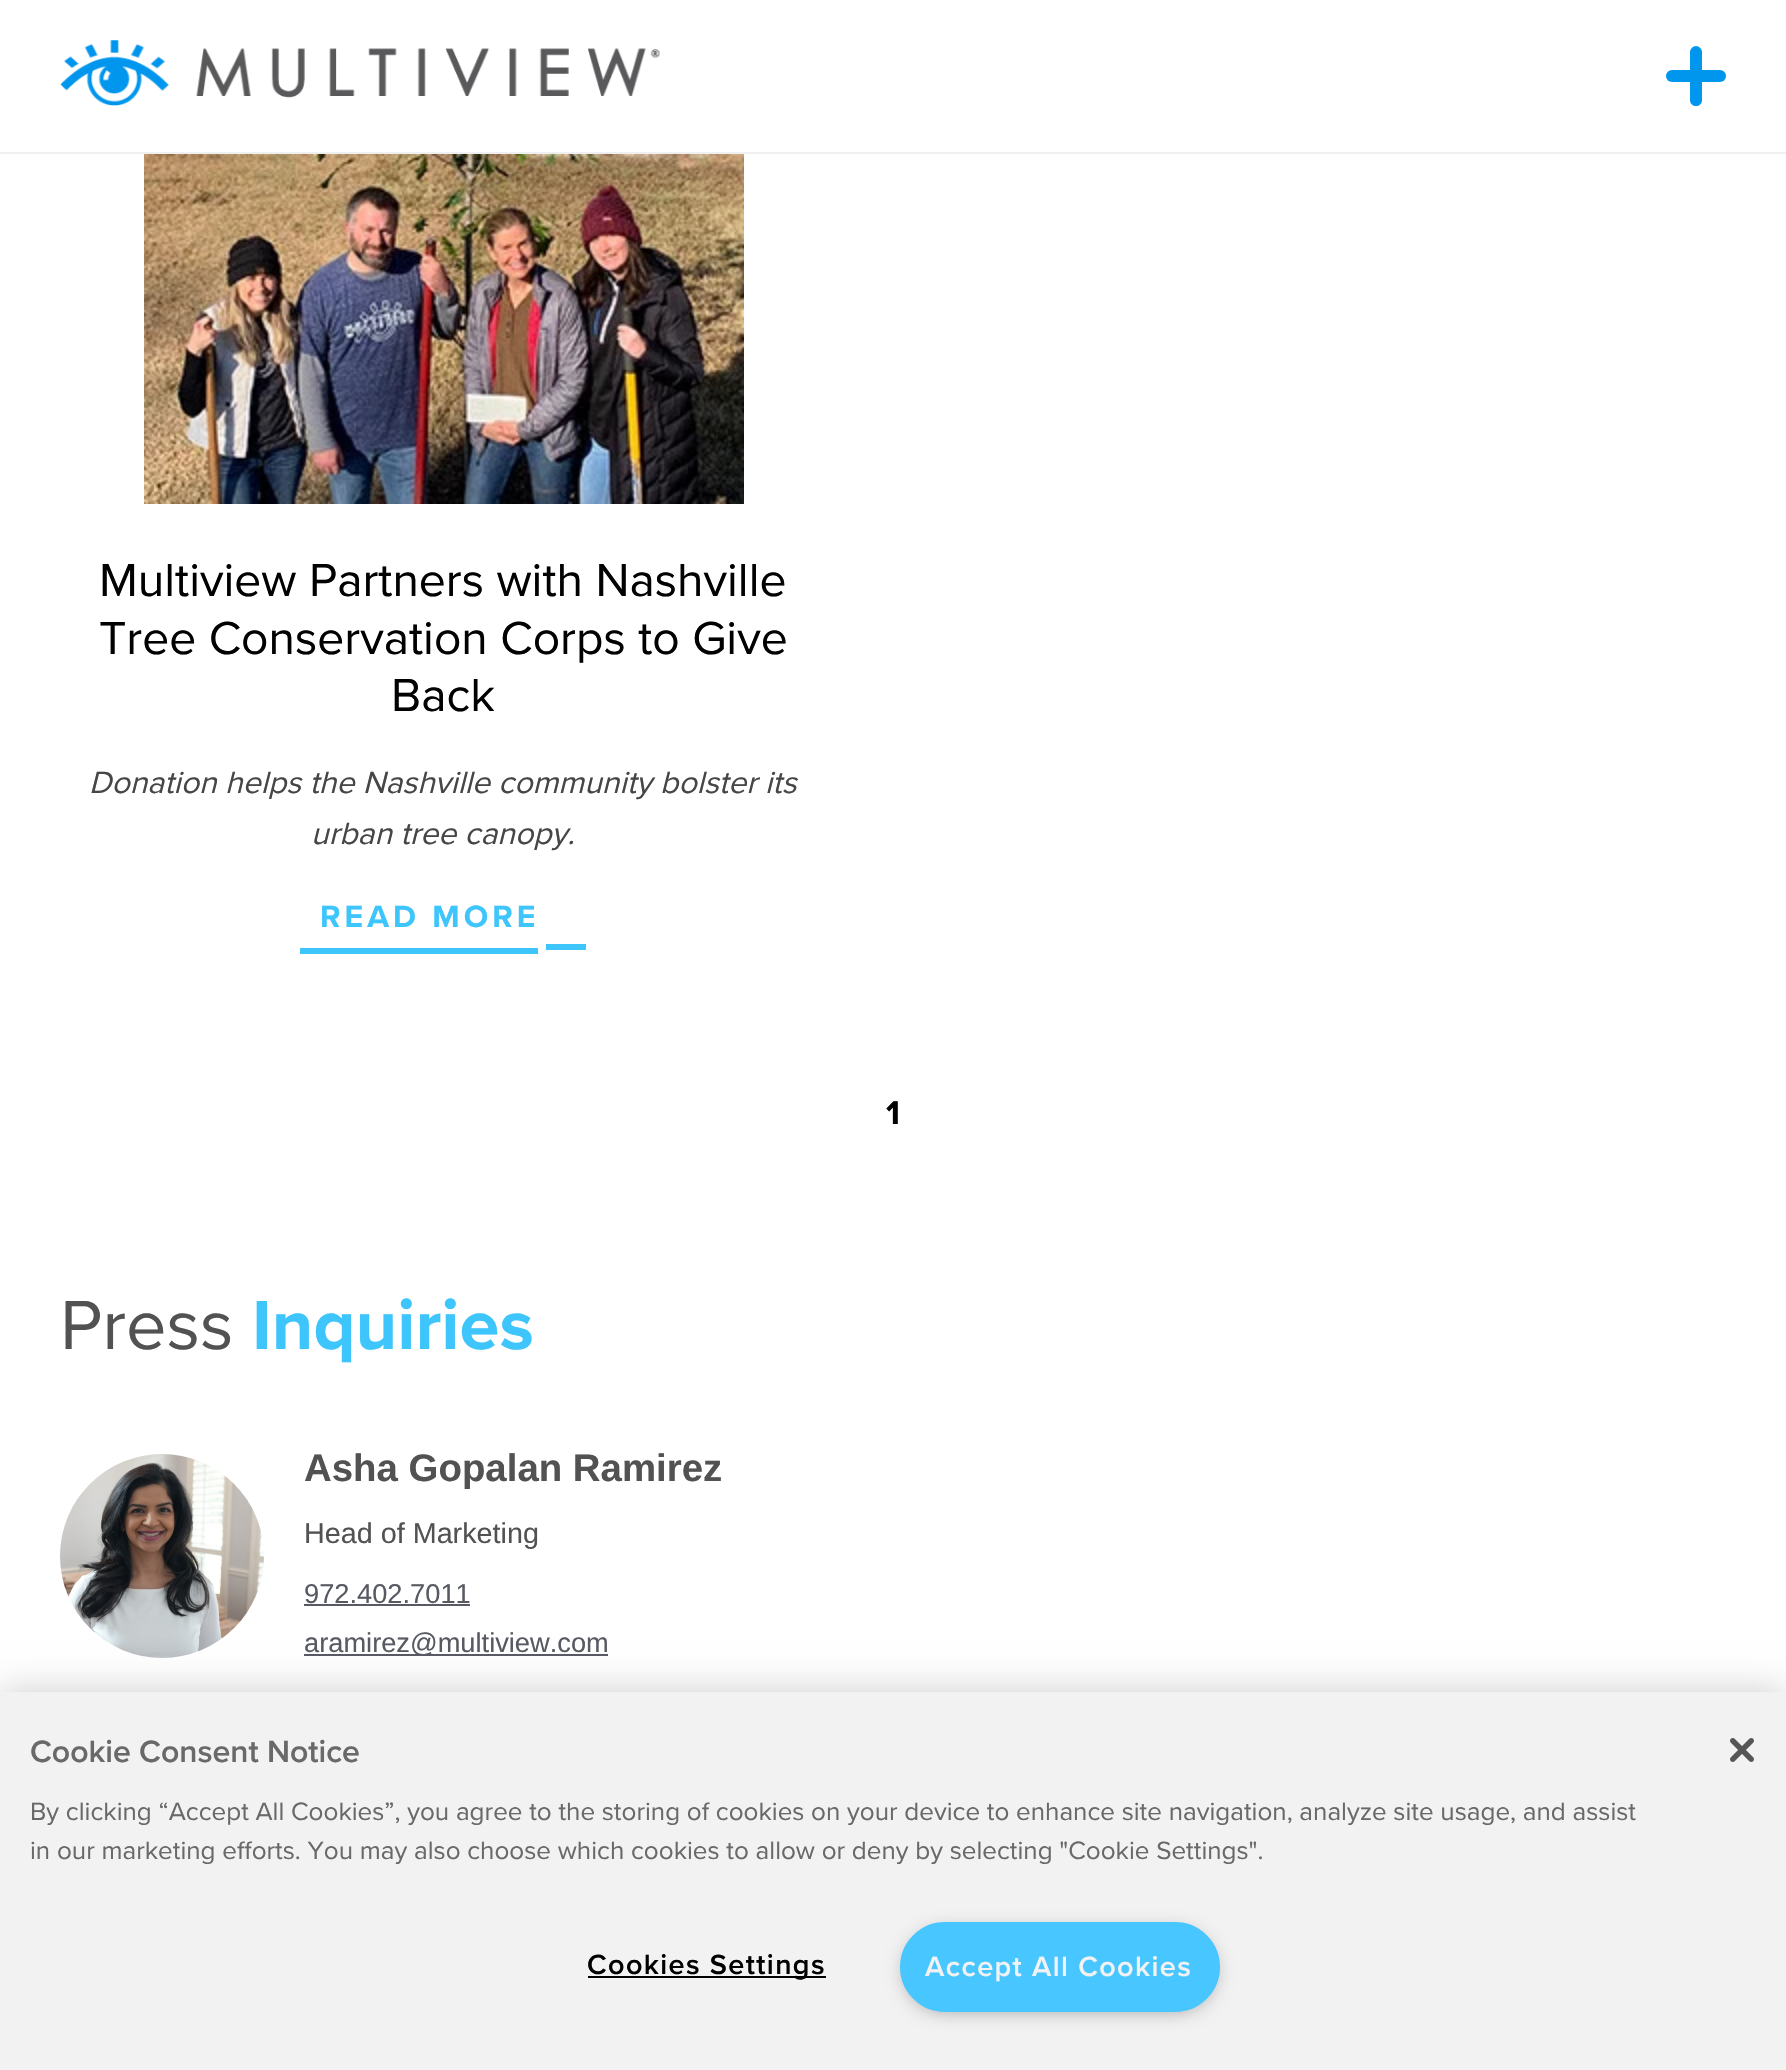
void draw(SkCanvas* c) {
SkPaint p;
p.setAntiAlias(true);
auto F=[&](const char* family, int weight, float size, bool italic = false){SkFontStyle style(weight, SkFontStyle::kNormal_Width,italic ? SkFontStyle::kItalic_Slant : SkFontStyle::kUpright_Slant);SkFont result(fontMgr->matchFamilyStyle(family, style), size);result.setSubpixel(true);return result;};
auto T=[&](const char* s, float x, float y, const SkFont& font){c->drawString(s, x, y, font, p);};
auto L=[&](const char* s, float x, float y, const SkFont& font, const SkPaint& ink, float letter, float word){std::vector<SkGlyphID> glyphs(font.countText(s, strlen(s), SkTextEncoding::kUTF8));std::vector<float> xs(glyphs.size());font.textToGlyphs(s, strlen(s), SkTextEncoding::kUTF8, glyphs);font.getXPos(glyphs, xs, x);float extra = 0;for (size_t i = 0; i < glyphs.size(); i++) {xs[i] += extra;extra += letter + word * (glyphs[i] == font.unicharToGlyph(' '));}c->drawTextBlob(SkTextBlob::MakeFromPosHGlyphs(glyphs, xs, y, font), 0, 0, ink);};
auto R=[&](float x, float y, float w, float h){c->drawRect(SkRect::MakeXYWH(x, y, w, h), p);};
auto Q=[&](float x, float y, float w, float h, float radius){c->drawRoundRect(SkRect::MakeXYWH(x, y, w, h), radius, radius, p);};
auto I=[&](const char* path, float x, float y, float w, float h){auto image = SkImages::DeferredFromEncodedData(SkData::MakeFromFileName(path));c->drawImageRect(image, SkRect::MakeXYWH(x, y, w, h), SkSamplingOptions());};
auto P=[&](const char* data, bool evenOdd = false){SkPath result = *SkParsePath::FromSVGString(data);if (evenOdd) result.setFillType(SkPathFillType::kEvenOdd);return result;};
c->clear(0xffffffff);
p.setColor(0xfff0f0f0);
R(0,152,1786,2);
I("1.png",60,40,600,66);
p.setColor(0xff0096ed);
c->drawPath(P("M1702 52v48c0 4-3 6-6 6c-3 0-6-2-6-6v-48c0-3 3-6 6-6c3 0 6 3 6 6z"),p);
Q(1666,70,60,12,6);
I("2.png",144,154,600,350);
auto f1 = F("Proxima Nova",400,48);
p.setColor(0xff010101);
T("Multiview Partners with Nashville",99,596,f1);
T("Tree Conservation Corps to Give",99,654,f1);
T("Back",391,711,f1);
auto f2 = F("Proxima Nova",400,32,true);
p.setColor(0xff464646);
T("Donation helps the Nashville community bolster its",89,793,f2);
T("urban tree canopy.",311,844,f2);
auto f3 = F("Proxima Nova",700,32);
p.setColor(0xff3dc5fc);
L("READ MORE",320,927,f3,p,4,0);
R(300,948,238,6);
R(546,944,40,6);
auto f4 = F("Proxima Nova",700,34);
p.setColor(0xff010101);
T("1",886,1124,f4);
auto f5 = F("Proxima Nova",400,72);
p.setColor(0xff525252);
T("Press",60,1349,f5);
auto f6 = F("Proxima Nova",700,72);
p.setColor(0xff3dc5fc);
T("Inquiries",252,1349,f6);
I("3.png",60,1454,204,204);
auto f7 = F("Liberation Sans",700,38.4);
p.setColor(0xff525252);
T("Asha Gopalan Ramirez",304,1481,f7);
auto f8 = F("Liberation Sans",400,28.75);
T("Head of Marketing",304,1543,f8);
auto f9 = F("Liberation Sans",400,27.25);
p.setColor(0xff575a62);
T("972.402.7011",304,1603,f9);
R(304,1604,166,2);
R(304,1654,304,2);
T("aramirez@multiview.com",304,1652,f9);
p.setColor(0x33000000);
p.setMaskFilter(SkMaskFilter::MakeBlur(kNormal_SkBlurStyle, 18));
c->drawRect(SkRect::MakeXYWH(0,1692,1786,378),p);
p.setMaskFilter(nullptr);
p.setColor(0xfff2f2f2);
R(0,1692,1786,378);
auto f10 = F("Proxima Nova",600,32);
p.setColor(0xff696969);
T("Cookie Consent Notice",30,1762,f10);
auto f11 = F("Proxima Nova",400,26.02);
T("By clicking “Accept All Cookies”, you agree to the storing of cookies on your device to enhance site navigation, analyze site usage, and assist",30,1820,f11);
T("in our marketing efforts. You may also choose which cookies to allow or deny by selecting \"Cookie Settings\".",30,1859,f11);
p.setColor(0xff000000);
R(588,1976,238,2);
auto f12 = F("Proxima Nova",600,28.75);
p.setColor(0xff010101);
L("Cookies Settings",587,1974,f12,p,1.4,0);
p.setColor(0xff999999);
p.setMaskFilter(SkMaskFilter::MakeBlur(kNormal_SkBlurStyle, 10));
c->drawRoundRect(SkRect::MakeXYWH(906,1932,308,78),39,39,p);
p.setMaskFilter(nullptr);
p.setColor(0xff48c6ff);
c->drawRoundRect(SkRect::MakeXYWH(901,1923,318,88),44,44,p);
p.setStroke(true);
p.setStrokeWidth(2);
c->drawRoundRect(SkRect::MakeXYWH(901,1923,318,88),44,44,p);
p.setStroke(false);
p.setColor(0xfff2f2f2);
L("Accept All Cookies",925,1976,f12,p,1.4,0);
I("4.png",1730,1738,24,24);
}
